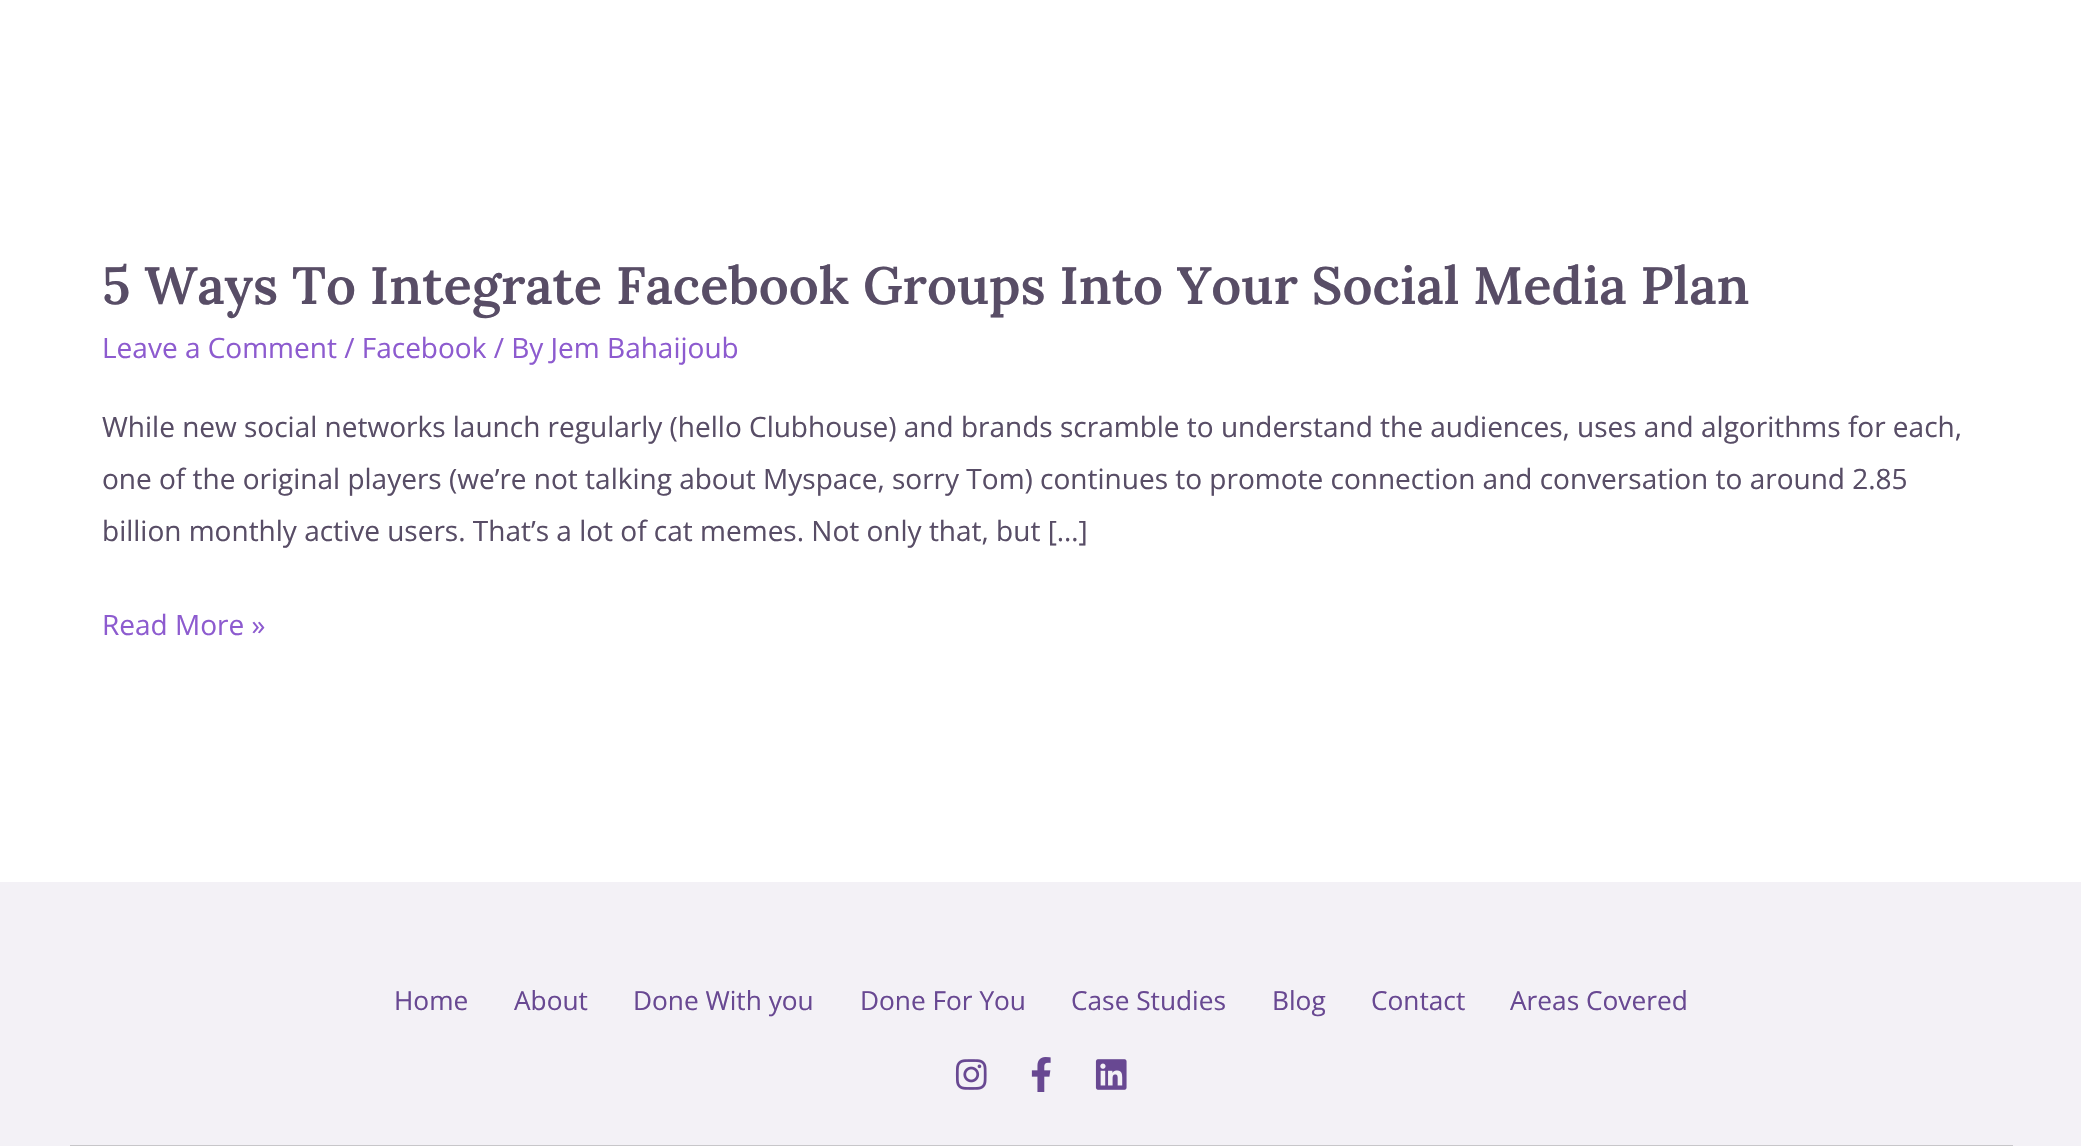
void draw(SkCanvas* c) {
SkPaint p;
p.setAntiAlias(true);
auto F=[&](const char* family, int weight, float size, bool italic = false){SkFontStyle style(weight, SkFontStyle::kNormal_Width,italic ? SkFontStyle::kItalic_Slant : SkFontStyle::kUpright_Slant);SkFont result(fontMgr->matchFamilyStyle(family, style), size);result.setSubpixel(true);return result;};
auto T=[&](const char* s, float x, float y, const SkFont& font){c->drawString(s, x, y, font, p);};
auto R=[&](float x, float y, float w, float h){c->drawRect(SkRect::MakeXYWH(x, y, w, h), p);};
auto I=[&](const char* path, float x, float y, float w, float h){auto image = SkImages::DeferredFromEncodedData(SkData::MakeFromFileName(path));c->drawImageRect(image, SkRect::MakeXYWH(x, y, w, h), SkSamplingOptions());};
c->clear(0xffffffff);
auto f1 = F("Lora",600,52.5);
p.setColor(0xff584d66);
T("5 Ways To Integrate Facebook Groups Into Your Social Media Plan",102,304,f1);
auto f2 = F("Open Sans",400,28);
p.setColor(0xff8d5bcf);
T("Leave a Comment / Facebook / By Jem Bahaijoub",102,358,f2);
p.setColor(0xff584d66);
T("While new social networks launch regularly (hello Clubhouse) and brands scramble to understand the audiences, uses and algorithms for each,",102,437,f2);
T("one of the original players (we’re not talking about Myspace, sorry Tom) continues to promote connection and conversation to around 2.85",102,489,f2);
T("billion monthly active users. That’s a lot of cat memes. Not only that, but […]",102,541,f2);
p.setColor(0xff8d5bcf);
T("Read More »",102,635,f2);
p.setColor(0xfff3f1f6);
R(0,882,2081,264);
p.setColor(0xffc7c6c9);
R(70,1145,1943,1);
auto f3 = F("Open Sans",400,26.25);
p.setColor(0xff684892);
T("Home",394,1010,f3);
T("About",514,1010,f3);
T("Done With you",633,1010,f3);
T("Done For You",860,1010,f3);
T("Case Studies",1071,1010,f3);
T("Blog",1272,1010,f3);
T("Contact",1371,1010,f3);
T("Areas Covered",1510,1010,f3);
I("1.png",955,1059,32,31);
I("2.png",1031,1057,20,35);
I("3.png",1095,1059,32,31);
}
